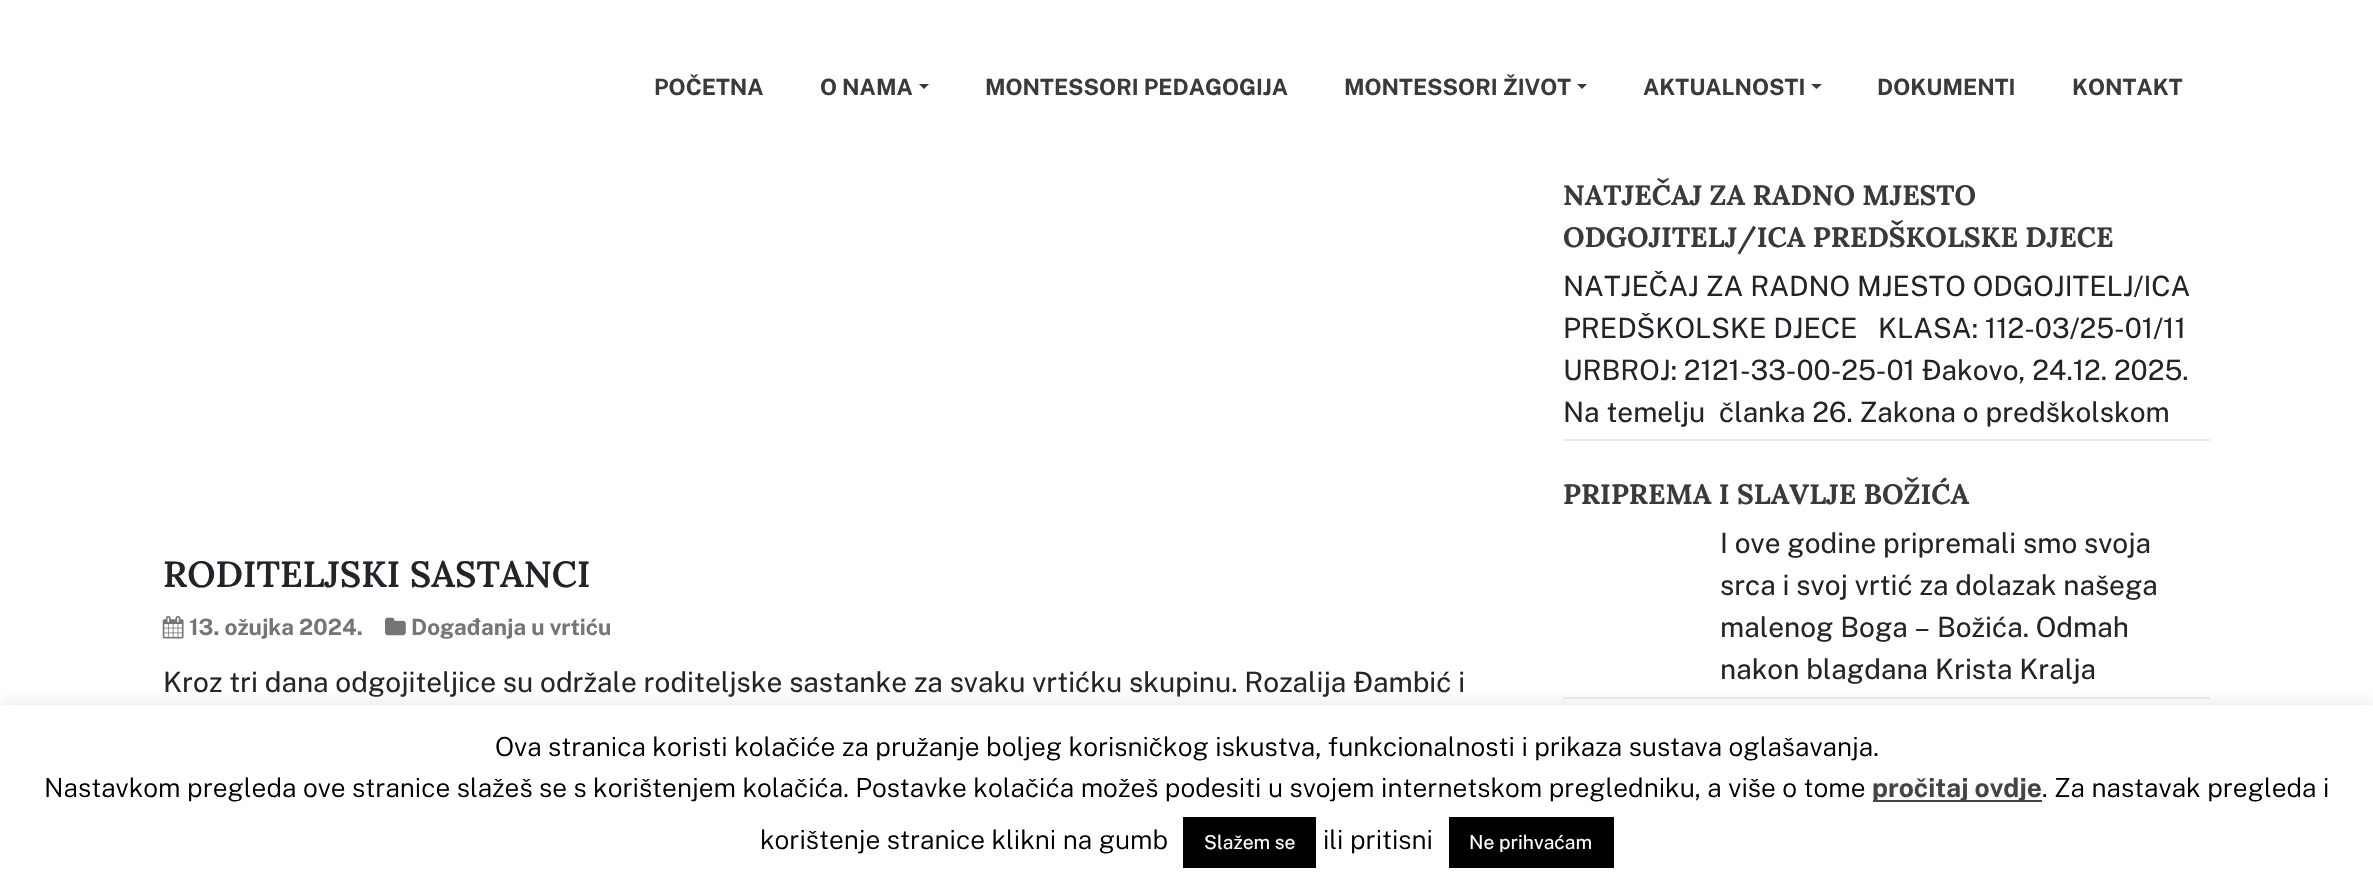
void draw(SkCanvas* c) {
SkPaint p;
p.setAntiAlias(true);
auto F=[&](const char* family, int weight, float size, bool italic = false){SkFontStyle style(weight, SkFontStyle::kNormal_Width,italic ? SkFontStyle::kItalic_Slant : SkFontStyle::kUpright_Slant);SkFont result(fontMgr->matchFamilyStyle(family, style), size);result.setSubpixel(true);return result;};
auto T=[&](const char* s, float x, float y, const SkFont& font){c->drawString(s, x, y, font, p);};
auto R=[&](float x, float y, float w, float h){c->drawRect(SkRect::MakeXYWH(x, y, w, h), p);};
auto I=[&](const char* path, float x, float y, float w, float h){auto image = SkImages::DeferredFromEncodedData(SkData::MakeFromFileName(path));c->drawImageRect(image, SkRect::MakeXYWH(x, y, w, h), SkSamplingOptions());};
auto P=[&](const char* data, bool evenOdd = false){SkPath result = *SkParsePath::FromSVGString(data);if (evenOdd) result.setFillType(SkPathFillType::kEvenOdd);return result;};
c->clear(0xffffffff);
auto f1 = F("Public Sans",700,22.4);
p.setColor(0xff3a3a3a);
T("POČETNA",654,95,f1);
T("O NAMA",820,95,f1);
c->drawPath(P("M919 84h10l-5 5z"),p);
T("MONTESSORI PEDAGOGIJA",985,95,f1);
T("MONTESSORI ŽIVOT",1344,95,f1);
c->drawPath(P("M1577 84h10l-5 5z"),p);
T("AKTUALNOSTI",1643,95,f1);
c->drawPath(P("M1811 84h11l-5.5 5z"),p);
T("DOKUMENTI",1877,95,f1);
T("KONTAKT",2072,95,f1);
auto f2 = F("Lora",600,36.4);
p.setColor(0xff212529);
T("RODITELJSKI SASTANCI",163,587,f2);
I("1.png",162,616,22,23);
p.setColor(0xff757575);
T("13. ožujka 2024.",189,635,f1);
I("2.png",385,617,21,19);
T("Događanja u vrtiću",411,635,f1);
auto f3 = F("Public Sans",400,28);
p.setColor(0xff212529);
T("Kroz tri dana odgojiteljice su održale roditeljske sastanke za svaku vrtićku skupinu. Rozalija Đambić i",163,692,f3);
p.setColor(0xffebebeb);
R(1563,439,647,2);
auto f4 = F("Lora",700,28);
p.setColor(0xff3a3a3a);
T("NATJEČAJ ZA RADNO MJESTO",1563,205,f4);
T("ODGOJITELJ/ICA PREDŠKOLSKE DJECE",1563,247,f4);
p.setColor(0xff212529);
T("NATJEČAJ ZA RADNO MJESTO ODGOJITELJ/ICA",1563,296,f3);
T("PREDŠKOLSKE DJECE   KLASA: 112-03/25-01/11",1563,338,f3);
T("URBROJ: 2121-33-00-25-01 Đakovo, 24.12. 2025.",1563,380,f3);
T("Na temelju  članka 26. Zakona o predškolskom",1563,422,f3);
p.setColor(0xffebebeb);
R(1563,697,647,2);
p.setColor(0xff3a3a3a);
T("PRIPREMA I SLAVLJE BOŽIĆA",1563,504,f4);
p.setColor(0xff212529);
T("I ove godine pripremali smo svoja",1720,553,f3);
T("srca i svoj vrtić za dolazak našega",1720,595,f3);
T("malenog Boga – Božića. Odmah",1720,637,f3);
T("nakon blagdana Krista Kralja",1720,679,f3);
p.setColor(0x4dacabab);
p.setMaskFilter(SkMaskFilter::MakeBlur(kNormal_SkBlurStyle, 9));
c->drawRect(SkRect::MakeXYWH(0,704,2373,183),p);
p.setMaskFilter(nullptr);
p.setColor(0xffffffff);
R(0,705,2373,184);
auto f5 = F("Public Sans",300,26.25);
p.setColor(0xff000000);
T("Ova stranica koristi kolačiće za pružanje boljeg korisničkog iskustva, funkcionalnosti i prikaza sustava oglašavanja.",495,756,f5);
T("Nastavkom pregleda ove stranice slažeš se s korištenjem kolačića. Postavke kolačića možeš podesiti u svojem internetskom pregledniku, a više o tome",44,797,f5);
p.setColor(0xff444444);
R(1873,800,169,2);
auto f6 = F("Public Sans",700,26.25);
T("pročitaj ovdje",1872,797,f6);
p.setColor(0xff000000);
T(". Za nastavak pregleda i",2042,797,f5);
T("korištenje stranice klikni na gumb",760,849,f5);
R(1183,817,133,51);
auto f7 = F("Public Sans",400,19.25);
p.setColor(0xffffffff);
T("Slažem se",1204,849,f7);
p.setColor(0xff000000);
T("ili pritisni",1323,849,f5);
R(1449,817,165,51);
p.setColor(0xffffffff);
T("Ne prihvaćam",1469,849,f7);
}
